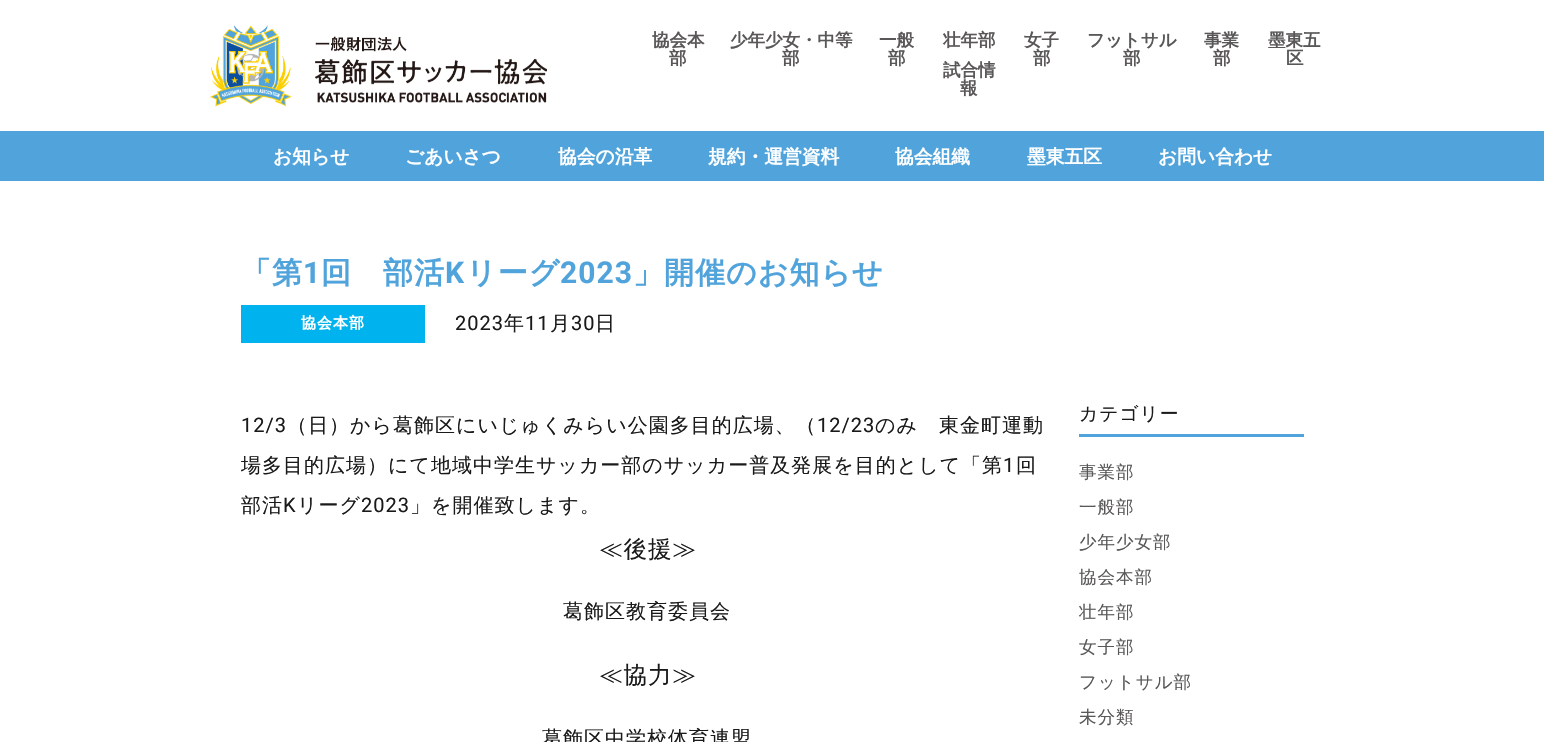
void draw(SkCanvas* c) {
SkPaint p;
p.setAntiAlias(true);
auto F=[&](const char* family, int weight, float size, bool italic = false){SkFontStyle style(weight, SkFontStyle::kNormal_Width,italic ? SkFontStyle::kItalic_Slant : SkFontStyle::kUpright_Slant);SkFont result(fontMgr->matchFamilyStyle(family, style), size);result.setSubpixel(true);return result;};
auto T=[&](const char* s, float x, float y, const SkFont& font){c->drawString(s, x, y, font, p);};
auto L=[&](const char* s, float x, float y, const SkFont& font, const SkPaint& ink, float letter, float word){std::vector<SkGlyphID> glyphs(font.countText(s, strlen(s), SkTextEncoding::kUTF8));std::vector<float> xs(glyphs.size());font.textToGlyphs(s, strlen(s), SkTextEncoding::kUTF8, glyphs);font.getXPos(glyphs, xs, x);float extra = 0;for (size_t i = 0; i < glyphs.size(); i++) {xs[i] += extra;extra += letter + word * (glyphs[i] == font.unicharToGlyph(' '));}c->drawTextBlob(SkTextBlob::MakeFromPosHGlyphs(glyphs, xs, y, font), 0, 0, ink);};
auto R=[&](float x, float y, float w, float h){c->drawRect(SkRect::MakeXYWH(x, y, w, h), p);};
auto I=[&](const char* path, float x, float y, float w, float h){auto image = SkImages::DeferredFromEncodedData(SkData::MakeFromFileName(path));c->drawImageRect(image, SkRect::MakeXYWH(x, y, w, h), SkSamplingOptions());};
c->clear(0xffffffff);
I("1.png",210,25,337,82);
auto f1 = F("WenQuanYi Zen Hei",700,17.5);
p.setColor(0xff595757);
T("協会本",652,46,f1);
T("部",669,64,f1);
T("少年少女・中等",730,46,f1);
T("部",782,64,f1);
T("一般",879,46,f1);
T("部",888,64,f1);
T("壮年部",943,46,f1);
T("試合情",943,76,f1);
T("報",960,94,f1);
T("女子",1024,46,f1);
T("部",1033,64,f1);
T("フットサル",1087,46,f1);
T("部",1123,64,f1);
T("事業",1204,46,f1);
T("部",1213,64,f1);
T("墨東五",1268,46,f1);
T("区",1286,64,f1);
p.setColor(0xff51a4db);
R(0,131,1544,50);
auto f2 = F("WenQuanYi Zen Hei",700,18.75);
p.setColor(0xffffffff);
T("お知らせ",273,163,f2);
T("ごあいさつ",405,163,f2);
T("協会の沿革",558,163,f2);
T("規約・運営資料",708,163,f2);
T("協会組織",895,163,f2);
T("墨東五区",1027,163,f2);
T("お問い合わせ",1158,163,f2);
auto f3 = F("WenQuanYi Zen Hei",700,30);
p.setColor(0xff51a4db);
L("「第",241,283,f3,p,1,0);
auto f4 = F("Roboto",700,30);
L("1",303,283,f4,p,1,0);
L("回　部活",321,283,f3,p,1,0);
L("K",445,283,f4,p,1,0);
L("リーグ",466,283,f3,p,1,0);
L("2023",560,283,f4,p,1,0);
L("」開催のお知らせ",633,283,f3,p,1,0);
p.setColor(0xff00b2ed);
R(241,305,184,38);
auto f5 = F("WenQuanYi Zen Hei",700,15);
p.setColor(0xffffffff);
L("協会本部",301,328,f5,p,1,0);
auto f6 = F("Roboto",400,20);
p.setColor(0xff1a1a1a);
L("2023",455,330,f6,p,1,0);
auto f7 = F("WenQuanYi Zen Hei",500,20);
L("年",504,330,f7,p,1,0);
L("11",525,330,f6,p,1,0);
L("月",550,330,f7,p,1,0);
L("30",571,330,f6,p,1,0);
L("日",595,330,f7,p,1,0);
L("12/3",241,432,f6,p,1,0);
L("（日）から葛飾区にいじゅくみらい公園多目的広場、（",287,432,f7,p,1,0);
L("12/23",817,432,f6,p,1,0);
L("のみ　東金町運動",875,432,f7,p,1,0);
L("場多目的広場）にて地域中学生サッカー部のサッカー普及発展を目的として「第",241,472,f7,p,1,0);
L("1",1003,472,f6,p,1,0);
L("回",1016,472,f7,p,1,0);
L("部活",241,512,f7,p,1,0);
L("K",283,512,f6,p,1,0);
L("リーグ",297,512,f7,p,1,0);
L("2023",361,512,f6,p,1,0);
L("」を開催致します。",410,512,f7,p,1,0);
auto f8 = F("WenQuanYi Zen Hei",500,23.5);
L("≪後援≫",599,557,f8,p,1,0);
L("葛飾区教育委員会",563,618,f7,p,1,0);
L("≪協力≫",599,683,f8,p,1,0);
L("葛飾区中学校体育連盟",542,745,f7,p,1,0);
p.setColor(0xff51a4db);
R(1079,434,225,3);
auto f9 = F("WenQuanYi Zen Hei",500,18.75);
p.setColor(0xff1a1a1a);
L("カテゴリー",1079,420,f9,p,1,0);
auto f10 = F("WenQuanYi Zen Hei",500,17.5);
p.setColor(0xff595757);
L("事業部",1079,478,f10,p,1,0);
L("一般部",1079,513,f10,p,1,0);
L("少年少女部",1079,548,f10,p,1,0);
L("協会本部",1079,583,f10,p,1,0);
L("壮年部",1079,618,f10,p,1,0);
L("女子部",1079,653,f10,p,1,0);
L("フットサル部",1079,688,f10,p,1,0);
L("未分類",1079,723,f10,p,1,0);
}
